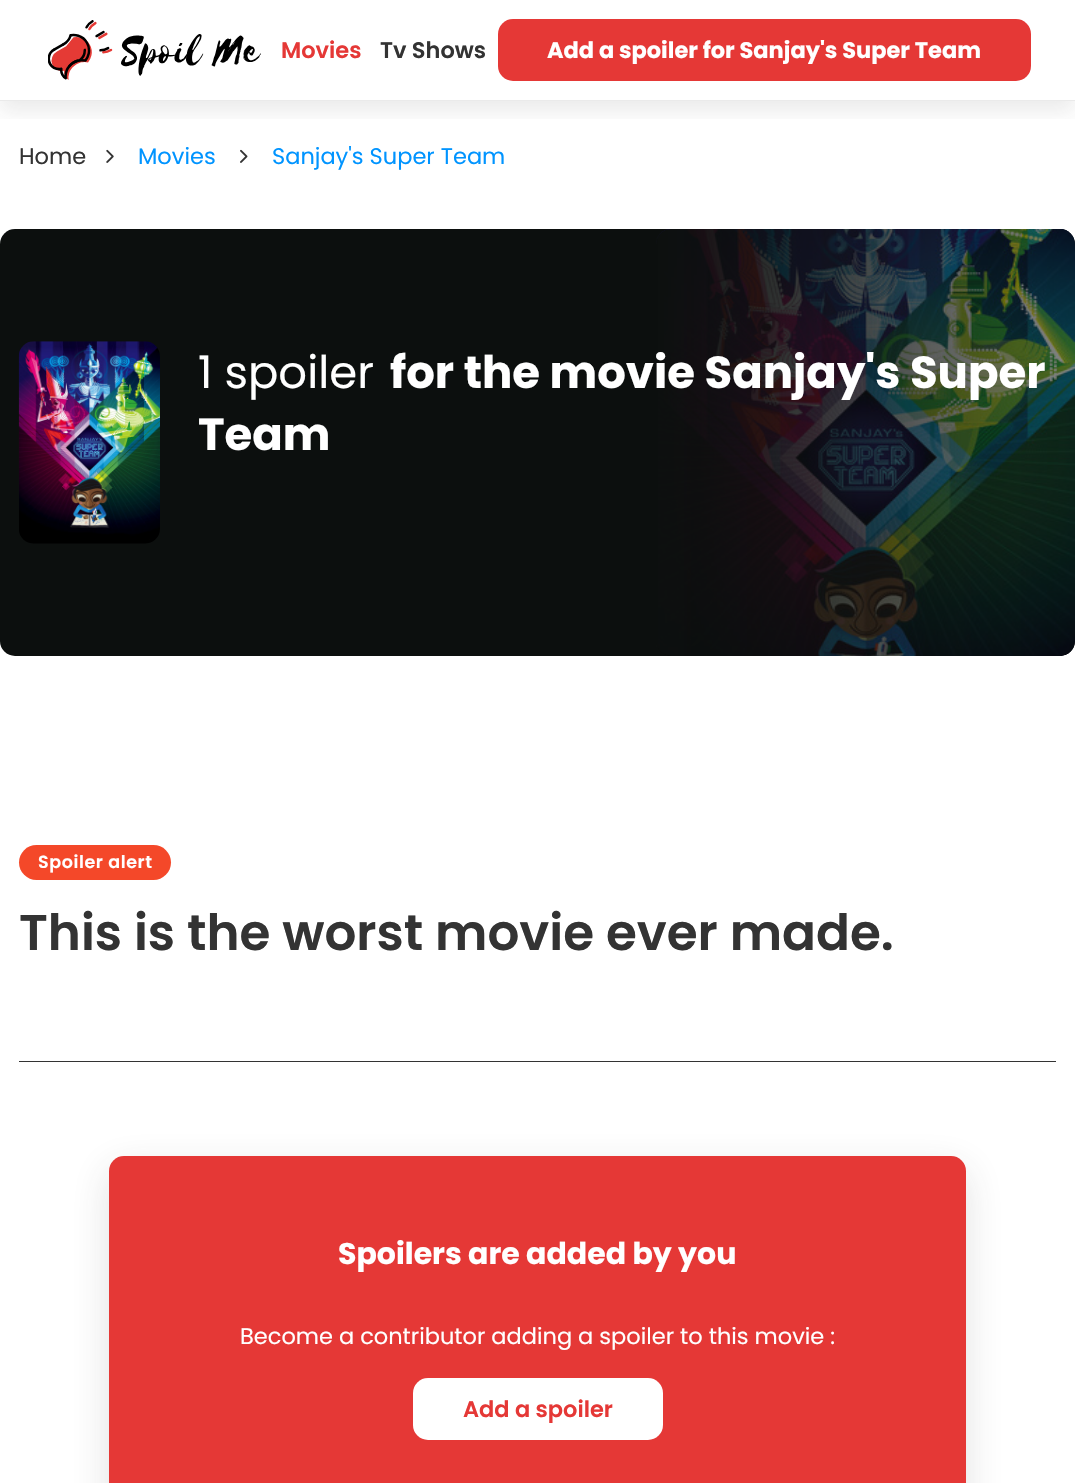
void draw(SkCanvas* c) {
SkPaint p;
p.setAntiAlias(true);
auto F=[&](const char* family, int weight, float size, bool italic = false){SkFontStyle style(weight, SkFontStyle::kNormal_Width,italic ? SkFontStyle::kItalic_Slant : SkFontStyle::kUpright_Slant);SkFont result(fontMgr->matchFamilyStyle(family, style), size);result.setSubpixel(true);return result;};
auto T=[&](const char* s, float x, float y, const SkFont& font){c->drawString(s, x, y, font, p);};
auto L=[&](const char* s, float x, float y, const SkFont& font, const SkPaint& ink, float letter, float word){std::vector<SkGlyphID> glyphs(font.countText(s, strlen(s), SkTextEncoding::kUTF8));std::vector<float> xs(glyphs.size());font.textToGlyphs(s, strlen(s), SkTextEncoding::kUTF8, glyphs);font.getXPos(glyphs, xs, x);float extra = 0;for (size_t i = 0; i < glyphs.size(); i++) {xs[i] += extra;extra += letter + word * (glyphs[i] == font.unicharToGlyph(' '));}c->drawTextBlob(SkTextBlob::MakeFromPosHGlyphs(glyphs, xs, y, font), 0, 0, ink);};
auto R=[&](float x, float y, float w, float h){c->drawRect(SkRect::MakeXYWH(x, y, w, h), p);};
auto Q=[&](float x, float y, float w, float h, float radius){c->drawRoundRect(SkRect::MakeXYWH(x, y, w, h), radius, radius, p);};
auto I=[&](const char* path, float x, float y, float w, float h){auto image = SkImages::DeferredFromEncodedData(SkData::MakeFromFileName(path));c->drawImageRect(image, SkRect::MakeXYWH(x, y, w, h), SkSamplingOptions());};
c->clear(0xffffffff);
c->save();
c->clipRect(SkRect::MakeXYWH(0,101,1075,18));
p.setColor(0x1a333333);
p.setMaskFilter(SkMaskFilter::MakeBlur(kNormal_SkBlurStyle, 10));
c->drawRect(SkRect::MakeXYWH(0,10,1075,101),p);
p.setMaskFilter(nullptr);
c->restore();
p.setColor(0xffeaeaea);
R(0,100,1075,1);
I("1.png",48,20,213,60);
auto f1 = F("Poppins",600,22.5);
p.setColor(0xffe53836);
T("Movies",281,58,f1);
p.setColor(0xff333333);
T("Tv Shows",380,58,f1);
p.setColor(0xffe53836);
Q(498,19,533,62,15);
auto f2 = F("Poppins",700,22.5);
p.setColor(0xffffffff);
T("Add a spoiler for Sanjay's Super Team",547,58,f2);
auto f3 = F("Poppins",400,22.5);
p.setColor(0xff333333);
T("Home",19,164,f3);
I("2.png",106,149,8,14);
p.setColor(0xff0094ff);
T("Movies",138,164,f3);
I("3.png",240,149,8,14);
T("Sanjay's Super Team",272,164,f3);
p.setColor(0xff0c0f0e);
Q(0,229,1075,427,15);
I("4.png",656,229,419,427);
{
const SkColor colors[] = {0xff0c0f0e,0x800c0f0e};
const float stops[] = {0,1};
const SkPoint ends[] = {{656,443}, {1075,443}};
p.setShader(SkGradientShader::MakeLinear(ends, colors, stops, 2, SkTileMode::kClamp));
p.setAlpha(255);
}
Q(656,229,419,427,15);
I("5.png",18,341,142,203);
auto f4 = F("Poppins",400,45);
p.setShader(nullptr);
p.setColor(0xffffffff);
T("1 spoiler",198,388,f4);
auto f5 = F("Poppins",700,45);
T("for the movie Sanjay's Super",390,388,f5);
T("Team",198,450,f5);
p.setColor(0xff333333);
R(19,1061,1037,1);
p.setColor(0xfff44829);
Q(19,845,152,35,17.5);
auto f6 = F("Poppins",600,17.5);
p.setColor(0xffffffff);
L("Spoiler alert",38,868,f6,p,.6,0);
auto f7 = F("Poppins",600,50);
p.setColor(0xff333333);
T("This is the worst movie ever made.",19,950,f7);
p.setColor(0x26333333);
p.setMaskFilter(SkMaskFilter::MakeBlur(kNormal_SkBlurStyle, 19));
c->drawRoundRect(SkRect::MakeXYWH(109,1169,857,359),15,15,p);
p.setMaskFilter(nullptr);
p.setColor(0xffe53836);
Q(109,1156,857,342,15);
auto f8 = F("Poppins",700,30);
p.setColor(0xffffffff);
T("Spoilers are added by you",338,1264,f8);
T("Become a contributor adding a spoiler to this movie :",240,1344,f3);
Q(413,1378,250,62,15);
p.setColor(0xffe53836);
T("Add a spoiler",463,1417,f1);
}
